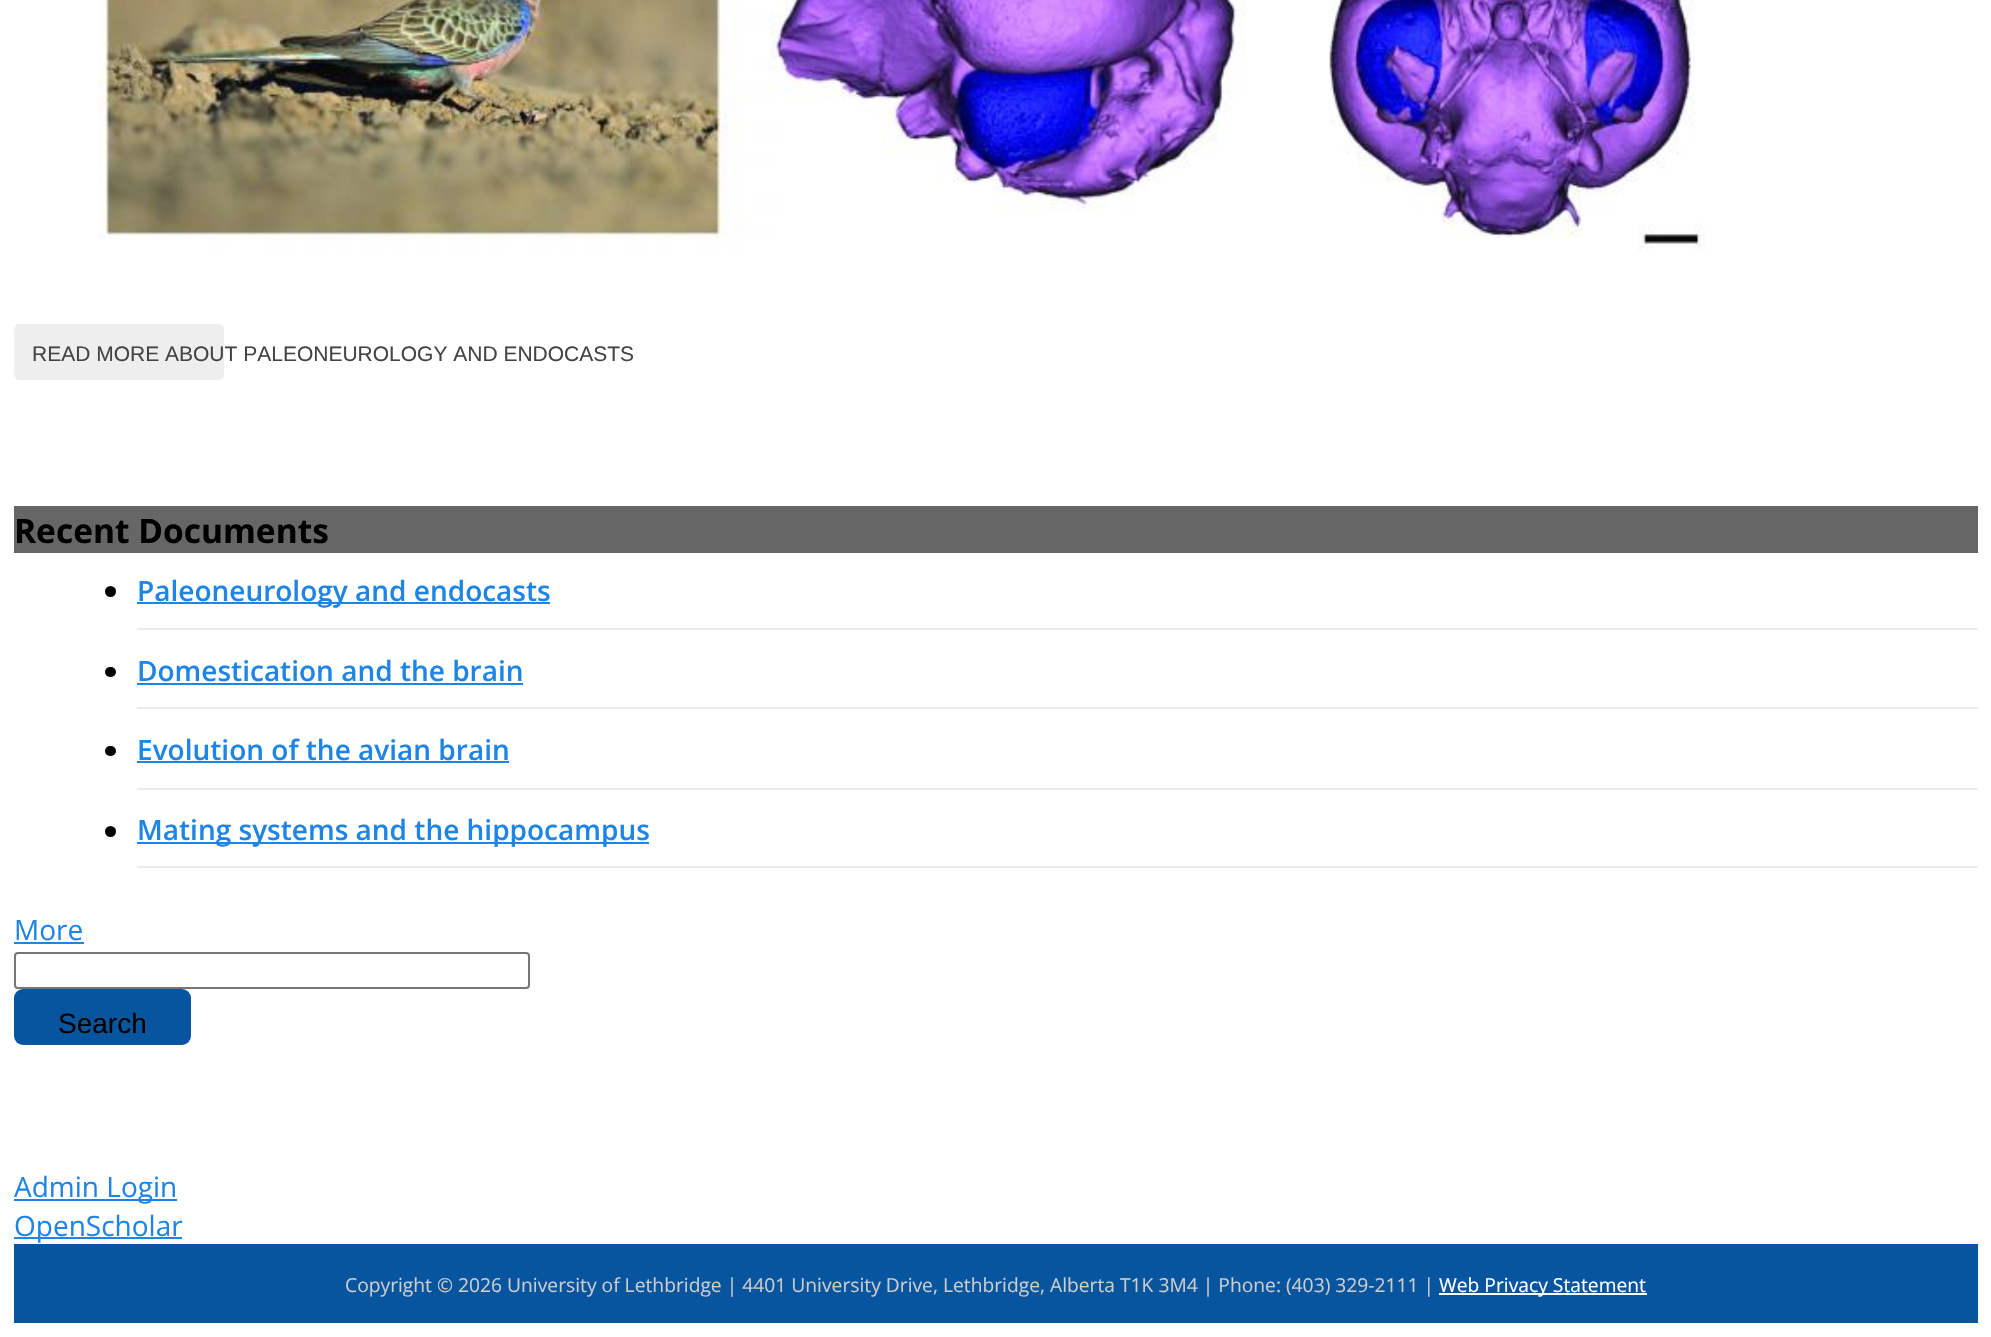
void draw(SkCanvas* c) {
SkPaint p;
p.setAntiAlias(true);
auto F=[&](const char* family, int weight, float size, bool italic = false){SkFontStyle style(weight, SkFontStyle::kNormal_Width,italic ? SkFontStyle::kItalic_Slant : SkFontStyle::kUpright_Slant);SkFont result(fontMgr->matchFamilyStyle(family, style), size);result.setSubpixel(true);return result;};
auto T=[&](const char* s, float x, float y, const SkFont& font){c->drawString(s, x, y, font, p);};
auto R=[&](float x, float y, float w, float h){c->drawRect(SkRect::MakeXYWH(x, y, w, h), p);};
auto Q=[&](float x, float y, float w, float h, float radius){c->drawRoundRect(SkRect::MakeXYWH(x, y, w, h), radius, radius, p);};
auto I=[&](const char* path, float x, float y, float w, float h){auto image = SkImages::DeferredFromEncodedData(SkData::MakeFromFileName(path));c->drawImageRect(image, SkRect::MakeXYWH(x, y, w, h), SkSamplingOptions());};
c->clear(0xffffffff);
I("1.png",98,0,1608,252);
p.setColor(0xffeeeeee);
Q(14,324,210,56,5);
auto f1 = F("Liberation Sans",400,21);
p.setColor(0xff444444);
T("READ MORE ABOUT PALEONEUROLOGY AND ENDOCASTS",32,361,f1);
p.setColor(0xff666666);
R(14,506,1964,47);
auto f2 = F("Open Sans",700,33.5);
p.setColor(0xff000000);
T("Recent Documents",14,543,f2);
p.setColor(0xffebebeb);
R(137,628,1841,2);
p.setColor(0xff000000);
c->drawCircle(110.5,591.5,5.5,p);
p.setColor(0xff1e85e6);
R(137,602,413,2);
auto f3 = F("Open Sans",600,28);
T("Paleoneurology and endocasts",137,601,f3);
p.setColor(0xffebebeb);
R(137,707,1841,2);
p.setColor(0xff000000);
Q(105,667,11,10,5);
p.setColor(0xff1e85e6);
T("Domestication and the brain",137,681,f3);
R(137,683,386,2);
p.setColor(0xffebebeb);
R(137,788,1841,2);
p.setColor(0xff000000);
Q(105,746,11,10,5);
p.setColor(0xff1e85e6);
T("Evolution of the avian brain",137,760,f3);
R(137,761,372,2);
p.setColor(0xffebebeb);
R(137,866,1841,2);
p.setColor(0xff000000);
c->drawCircle(110.5,831.5,5.5,p);
p.setColor(0xff1e85e6);
R(137,842,512,2);
T("Mating systems and the hippocampus",137,840,f3);
auto f4 = F("Open Sans",400,28);
T("More",14,940,f4);
R(14,942,70,2);
p.setStroke(true);
p.setStrokeWidth(2);
p.setColor(0xff767676);
c->drawRoundRect(SkRect::MakeXYWH(15,953,514,35),3,3,p);
p.setStroke(false);
p.setColor(0xff06559e);
Q(14,989,177,56,9);
auto f5 = F("Liberation Sans",400,28);
p.setColor(0xff000000);
T("Search",58,1033,f5);
p.setColor(0xff1e85e6);
R(14,1199,163,2);
T("Admin Login",14,1197,f4);
R(14,1237,168,2);
T("OpenScholar",14,1236,f4);
p.setColor(0xff06559e);
R(14,1244,1964,79);
auto f6 = F("Open Sans",400,19.25);
p.setColor(0xffcccccc);
T("Copyright © 2026 University of Lethbridge | 4401 University Drive, Lethbridge, Alberta T1K 3M4 | Phone: (403) 329-2111 |",345,1292,f6);
p.setColor(0xffffffff);
R(1439,1293,208,2);
T("Web Privacy Statement",1439,1292,f6);
}
